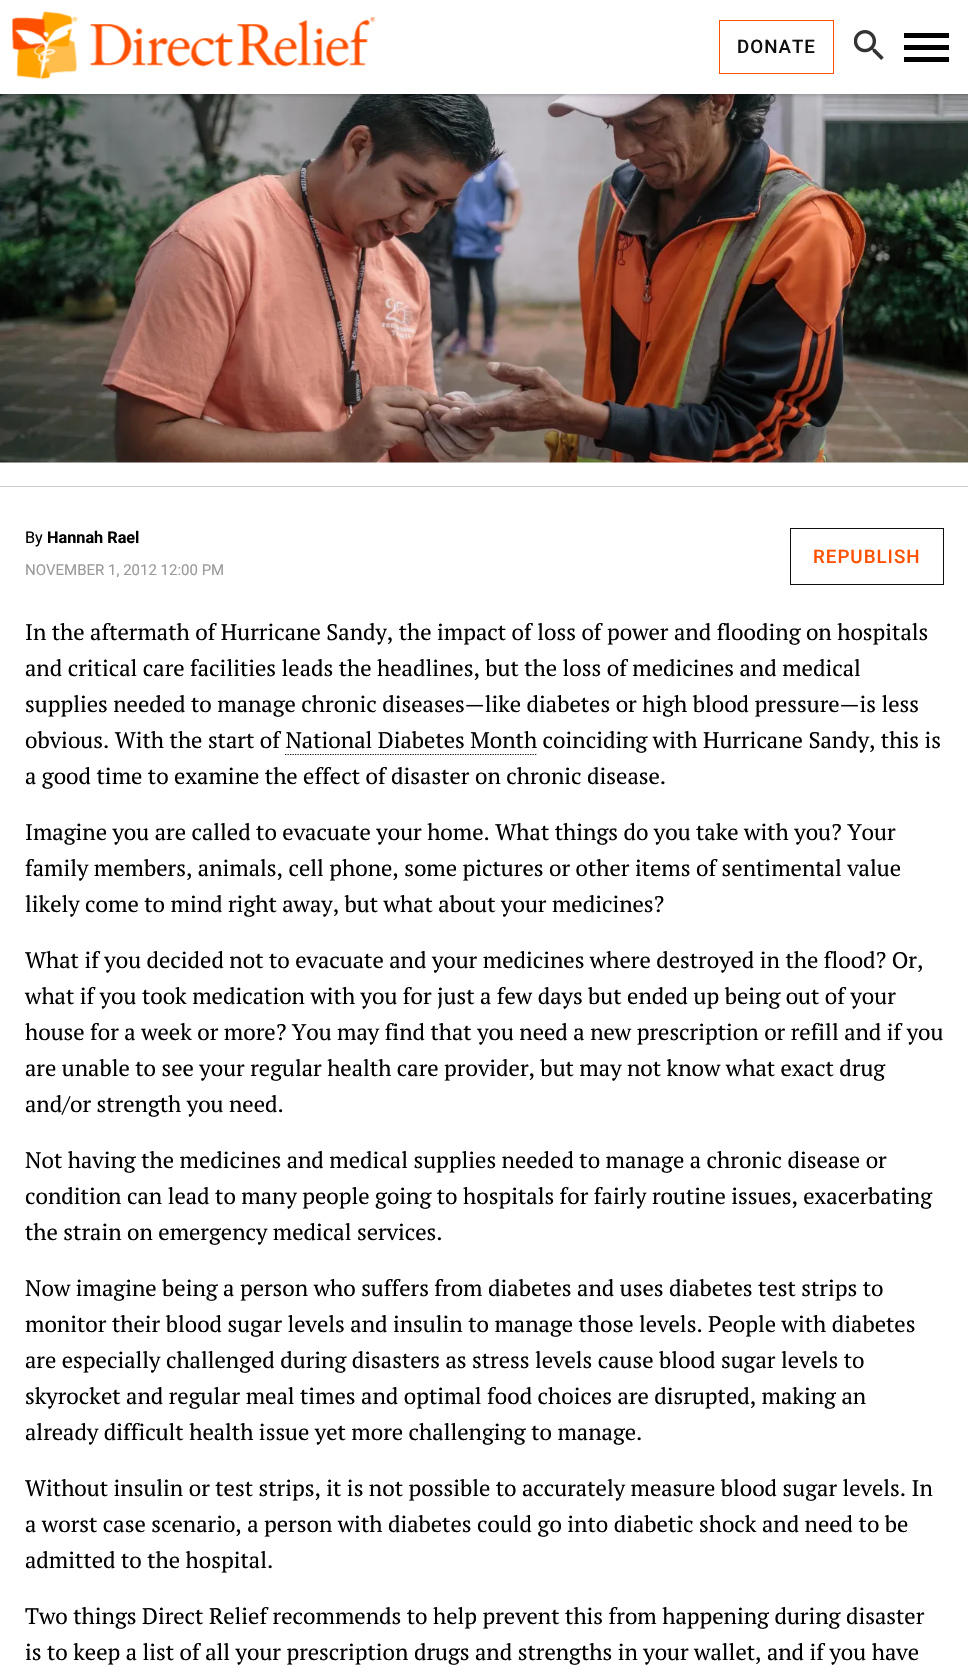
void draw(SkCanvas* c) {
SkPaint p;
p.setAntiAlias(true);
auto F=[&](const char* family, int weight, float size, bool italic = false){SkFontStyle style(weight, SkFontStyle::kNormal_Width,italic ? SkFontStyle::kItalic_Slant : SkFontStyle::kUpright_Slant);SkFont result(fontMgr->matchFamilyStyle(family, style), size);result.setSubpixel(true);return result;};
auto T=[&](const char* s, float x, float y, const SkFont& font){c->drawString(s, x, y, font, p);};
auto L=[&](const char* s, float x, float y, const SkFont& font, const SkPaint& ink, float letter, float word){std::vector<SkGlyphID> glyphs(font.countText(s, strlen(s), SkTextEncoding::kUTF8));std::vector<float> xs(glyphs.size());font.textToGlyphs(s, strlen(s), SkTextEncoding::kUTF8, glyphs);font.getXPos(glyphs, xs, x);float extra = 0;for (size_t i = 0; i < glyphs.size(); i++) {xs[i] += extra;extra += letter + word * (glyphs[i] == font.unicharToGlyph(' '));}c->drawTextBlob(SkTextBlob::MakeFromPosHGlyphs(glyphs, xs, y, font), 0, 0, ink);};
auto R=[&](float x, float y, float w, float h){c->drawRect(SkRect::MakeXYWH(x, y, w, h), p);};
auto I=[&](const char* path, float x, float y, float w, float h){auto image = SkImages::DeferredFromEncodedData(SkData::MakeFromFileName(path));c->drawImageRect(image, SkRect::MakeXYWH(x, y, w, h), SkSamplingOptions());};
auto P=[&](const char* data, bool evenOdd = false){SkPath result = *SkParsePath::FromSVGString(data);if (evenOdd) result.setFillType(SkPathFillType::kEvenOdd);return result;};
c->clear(0xffffffff);
I("3.png",0,94,968,369);
p.setColor(0x3b000000);
p.setMaskFilter(SkMaskFilter::MakeBlur(kNormal_SkBlurStyle, 2));
c->drawRect(SkRect::MakeXYWH(0,1,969,94),p);
p.setMaskFilter(nullptr);
p.setColor(0xffffffff);
R(0,0,968,94);
I("1.png",12,11,364,69);
p.setStroke(true);
p.setStrokeWidth(1);
p.setColor(0xffff5100);
c->drawRect(SkRect::MakeXYWH(719.5,20.5,114,53),p);
auto f1 = F("Roboto",500,18.75);
p.setStroke(false);
p.setColor(0xff0f0f0f);
L("DONATE",737,53,f1,p,1,0);
I("2.png",854,30,30,30);
p.setColor(0xff000000);
c->drawPath(P("M904 62h45v-5h-45zm0-12h45v-5h-45zm0-17v5h45v-5z"),p);
p.setColor(0xffcccccc);
R(0,486,968,1);
auto f2 = F("Roboto",400,16.25);
p.setColor(0xff000000);
T("By",25,543,f2);
auto f3 = F("Roboto",700,16.25);
T("Hannah Rael",47,543,f3);
auto f4 = F("Roboto",400,15);
p.setColor(0xff999999);
T("NOVEMBER 1, 2012 12:00 PM",25,575,f4);
p.setStroke(true);
p.setColor(0xff0f0f0f);
c->drawRect(SkRect::MakeXYWH(790.5,528.5,153,56),p);
p.setStroke(false);
p.setColor(0xffff5100);
L("REPUBLISH",813,563,f1,p,1,0);
auto f5 = F("PT Serif",400,22.5);
p.setColor(0xff000000);
T("In the aftermath of Hurricane Sandy, the impact of loss of power and flooding on hospitals",25,640,f5);
T("and critical care facilities leads the headlines, but the loss of medicines and medical",25,676,f5);
T("supplies needed to manage chronic diseases—like diabetes or high blood pressure—is less",25,712,f5);
T("obvious. With the start of National Diabetes Month coinciding with Hurricane Sandy, this is",25,748,f5);
p.setStroke(true);
p.setStrokeWidth(1.2);
p.setColor(0xff0f0f0f);
p.setPathEffect(SkDashPathEffect::Make({{1.25f,1.25f}}, 0));
c->drawPath(P("M285 754.5h252.5"),p);
p.setPathEffect(nullptr);
p.setStroke(false);
p.setColor(0xff000000);
T("a good time to examine the effect of disaster on chronic disease.",25,784,f5);
T("Imagine you are called to evacuate your home. What things do you take with you? Your",25,840,f5);
T("family members, animals, cell phone, some pictures or other items of sentimental value",25,876,f5);
T("likely come to mind right away, but what about your medicines?",25,912,f5);
T("What if you decided not to evacuate and your medicines where destroyed in the flood? Or,",25,968,f5);
T("what if you took medication with you for just a few days but ended up being out of your",25,1004,f5);
T("house for a week or more? You may find that you need a new prescription or refill and if you",25,1040,f5);
T("are unable to see your regular health care provider, but may not know what exact drug",25,1076,f5);
T("and/or strength you need.",25,1112,f5);
T("Not having the medicines and medical supplies needed to manage a chronic disease or",25,1168,f5);
T("condition can lead to many people going to hospitals for fairly routine issues, exacerbating",25,1204,f5);
T("the strain on emergency medical services.",25,1240,f5);
T("Now imagine being a person who suffers from diabetes and uses diabetes test strips to",25,1296,f5);
T("monitor their blood sugar levels and insulin to manage those levels. People with diabetes",25,1332,f5);
T("are especially challenged during disasters as stress levels cause blood sugar levels to",25,1368,f5);
T("skyrocket and regular meal times and optimal food choices are disrupted, making an",25,1404,f5);
T("already difficult health issue yet more challenging to manage.",25,1440,f5);
T("Without insulin or test strips, it is not possible to accurately measure blood sugar levels. In",25,1496,f5);
T("a worst case scenario, a person with diabetes could go into diabetic shock and need to be",25,1532,f5);
T("admitted to the hospital.",25,1568,f5);
T("Two things Direct Relief recommends to help prevent this from happening during disaster",25,1624,f5);
T("is to keep a list of all your prescription drugs and strengths in your wallet, and if you have",25,1660,f5);
}
